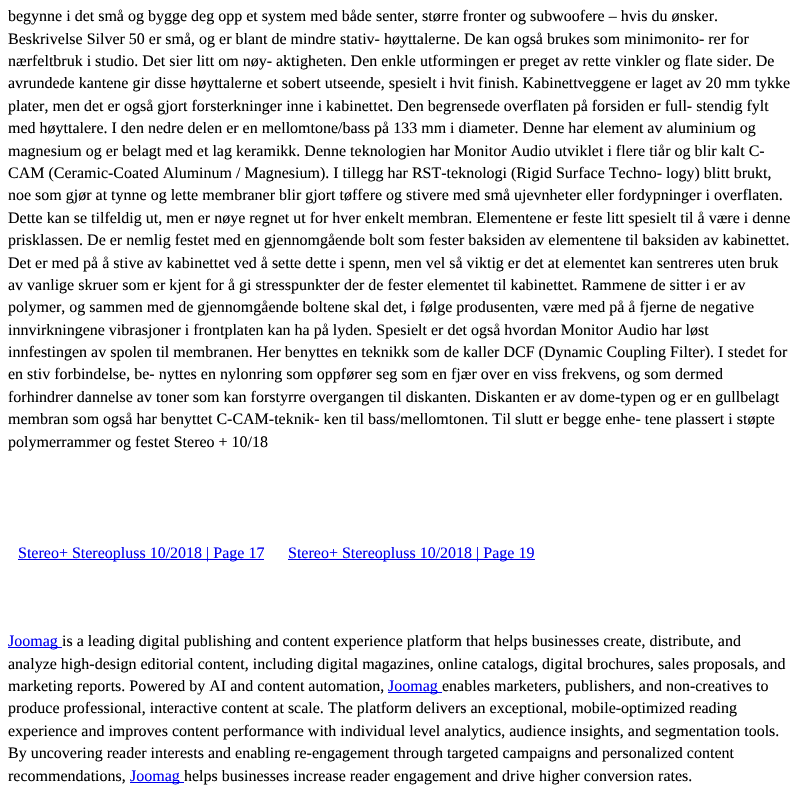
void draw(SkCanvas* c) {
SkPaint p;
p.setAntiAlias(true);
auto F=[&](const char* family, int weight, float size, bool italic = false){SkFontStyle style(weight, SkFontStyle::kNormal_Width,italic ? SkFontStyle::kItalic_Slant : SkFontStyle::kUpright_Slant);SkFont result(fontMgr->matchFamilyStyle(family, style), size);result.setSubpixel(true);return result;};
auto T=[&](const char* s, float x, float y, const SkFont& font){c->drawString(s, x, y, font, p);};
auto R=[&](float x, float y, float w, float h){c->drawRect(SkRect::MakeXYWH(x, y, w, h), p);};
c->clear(0xffffffff);
auto f1 = F("Liberation Serif",400,16);
p.setColor(0xff000000);
T("begynne i det små og bygge deg opp et system med både senter, større fronter og subwoofere – hvis du ønsker.",8,21,f1);
T("Beskrivelse Silver 50 er små, og er blant de mindre stativ- høyttalerne. De kan også brukes som minimonito- rer for",8,44,f1);
T("nærfeltbruk i studio. Det sier litt om nøy- aktigheten. Den enkle utformingen er preget av rette vinkler og flate sider. De",8,66,f1);
T("avrundede kantene gir disse høyttalerne et sobert utseende, spesielt i hvit finish. Kabinettveggene er laget av 20 mm tykke",8,88,f1);
T("plater, men det er også gjort forsterkninger inne i kabinettet. Den begrensede overflaten på forsiden er full- stendig fylt",8,111,f1);
T("med høyttalere. I den nedre delen er en mellomtone/bass på 133 mm i diameter. Denne har element av aluminium og",8,133,f1);
T("magnesium og er belagt med et lag keramikk. Denne teknologien har Monitor Audio utviklet i flere tiår og blir kalt C-",8,156,f1);
T("CAM (Ceramic-Coated Aluminum / Magnesium). I tillegg har RST-teknologi (Rigid Surface Techno- logy) blitt brukt,",8,178,f1);
T("noe som gjør at tynne og lette membraner blir gjort tøffere og stivere med små ujevnheter eller fordypninger i overflaten.",8,200,f1);
T("Dette kan se tilfeldig ut, men er nøye regnet ut for hver enkelt membran. Elementene er feste litt spesielt til å være i denne",8,223,f1);
T("prisklassen. De er nemlig festet med en gjennomgående bolt som fester baksiden av elementene til baksiden av kabinettet.",8,245,f1);
T("Det er med på å stive av kabinettet ved å sette dette i spenn, men vel så viktig er det at elementet kan sentreres uten bruk",8,268,f1);
T("av vanlige skruer som er kjent for å gi stresspunkter der de fester elementet til kabinettet. Rammene de sitter i er av",8,290,f1);
T("polymer, og sammen med de gjennomgående boltene skal det, i følge produsenten, være med på å fjerne de negative",8,312,f1);
T("innvirkningene vibrasjoner i frontplaten kan ha på lyden. Spesielt er det også hvordan Monitor Audio har løst",8,335,f1);
T("innfestingen av spolen til membranen. Her benyttes en teknikk som de kaller DCF (Dynamic Coupling Filter). I stedet for",8,357,f1);
T("en stiv forbindelse, be- nyttes en nylonring som oppfører seg som en fjær over en viss frekvens, og som dermed",8,379,f1);
T("forhindrer dannelse av toner som kan forstyrre overgangen til diskanten. Diskanten er av dome-typen og er en gullbelagt",8,402,f1);
T("membran som også har benyttet C-CAM-teknik- ken til bass/mellomtonen. Til slutt er begge enhe- tene plassert i støpte",8,424,f1);
T("polymerrammer og festet Stereo + 10/18",8,447,f1);
p.setColor(0xff0000ee);
R(18,559,246,1);
T("Stereo+ Stereopluss 10/2018 | Page 17",18,558,f1);
R(288,559,247,1);
T("Stereo+ Stereopluss 10/2018 | Page 19",288,558,f1);
R(8,647,54,1);
T("Joomag",8,646,f1);
p.setColor(0xff000000);
T("is a leading digital publishing and content experience platform that helps businesses create, distribute, and",62,646,f1);
T("analyze high-design editorial content, including digital magazines, online catalogs, digital brochures, sales proposals, and",8,669,f1);
T("marketing reports. Powered by AI and content automation,",8,691,f1);
p.setColor(0xff0000ee);
R(388,692,54,1);
T("Joomag",388,691,f1);
p.setColor(0xff000000);
T("enables marketers, publishers, and non-creatives to",442,691,f1);
T("produce professional, interactive content at scale. The platform delivers an exceptional, mobile-optimized reading",8,713,f1);
T("experience and improves content performance with individual level analytics, audience insights, and segmentation tools.",8,736,f1);
T("By uncovering reader interests and enabling re-engagement through targeted campaigns and personalized content",8,758,f1);
T("recommendations,",8,781,f1);
p.setColor(0xff0000ee);
R(130,782,54,1);
T("Joomag",130,781,f1);
p.setColor(0xff000000);
T("helps businesses increase reader engagement and drive higher conversion rates.",184,781,f1);
}
